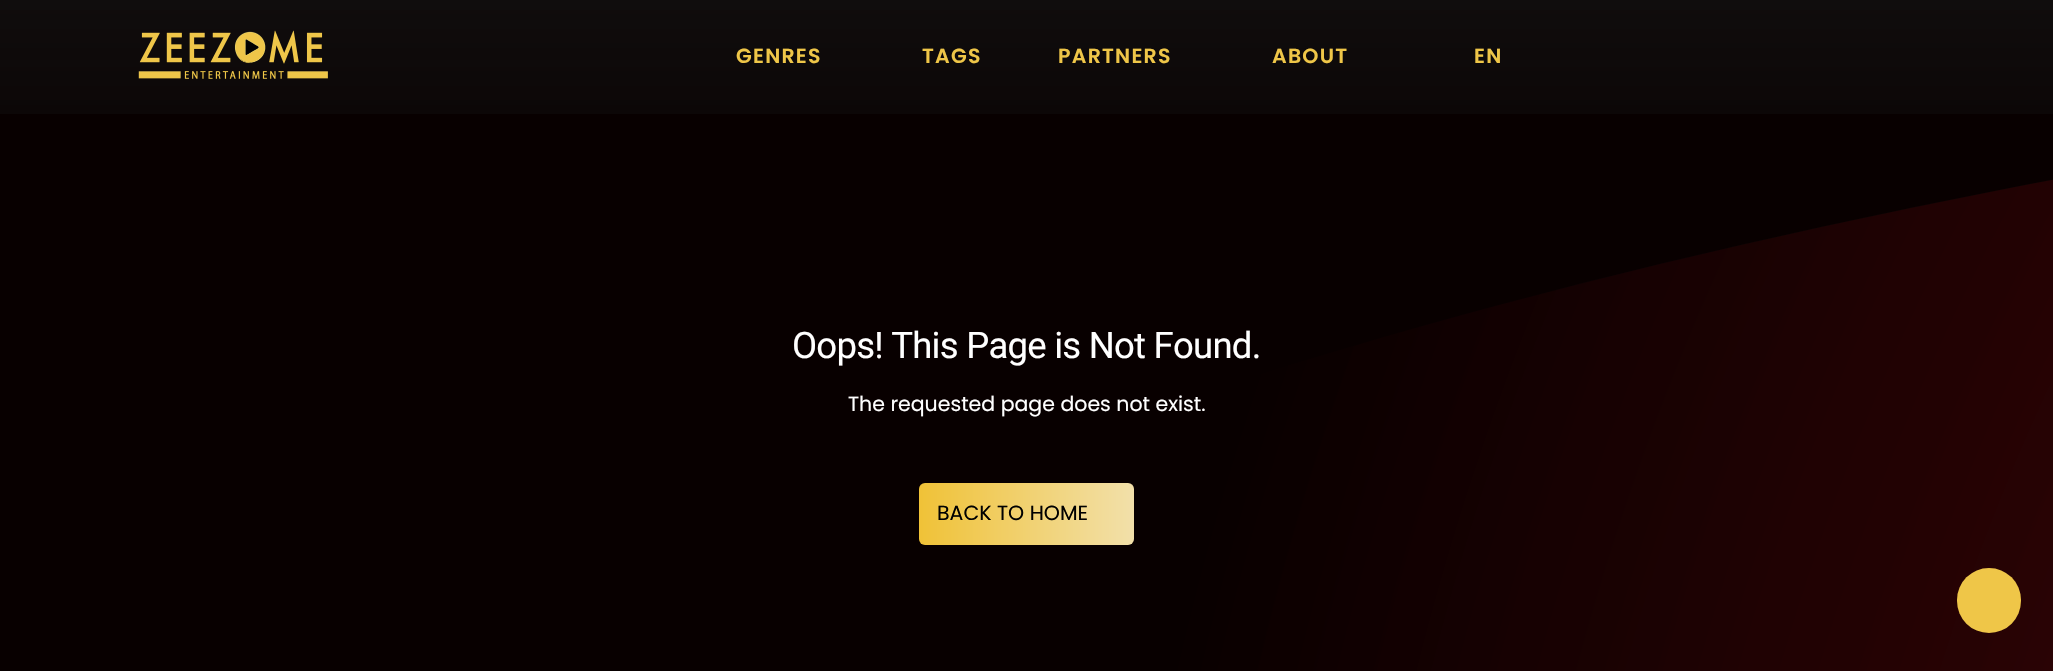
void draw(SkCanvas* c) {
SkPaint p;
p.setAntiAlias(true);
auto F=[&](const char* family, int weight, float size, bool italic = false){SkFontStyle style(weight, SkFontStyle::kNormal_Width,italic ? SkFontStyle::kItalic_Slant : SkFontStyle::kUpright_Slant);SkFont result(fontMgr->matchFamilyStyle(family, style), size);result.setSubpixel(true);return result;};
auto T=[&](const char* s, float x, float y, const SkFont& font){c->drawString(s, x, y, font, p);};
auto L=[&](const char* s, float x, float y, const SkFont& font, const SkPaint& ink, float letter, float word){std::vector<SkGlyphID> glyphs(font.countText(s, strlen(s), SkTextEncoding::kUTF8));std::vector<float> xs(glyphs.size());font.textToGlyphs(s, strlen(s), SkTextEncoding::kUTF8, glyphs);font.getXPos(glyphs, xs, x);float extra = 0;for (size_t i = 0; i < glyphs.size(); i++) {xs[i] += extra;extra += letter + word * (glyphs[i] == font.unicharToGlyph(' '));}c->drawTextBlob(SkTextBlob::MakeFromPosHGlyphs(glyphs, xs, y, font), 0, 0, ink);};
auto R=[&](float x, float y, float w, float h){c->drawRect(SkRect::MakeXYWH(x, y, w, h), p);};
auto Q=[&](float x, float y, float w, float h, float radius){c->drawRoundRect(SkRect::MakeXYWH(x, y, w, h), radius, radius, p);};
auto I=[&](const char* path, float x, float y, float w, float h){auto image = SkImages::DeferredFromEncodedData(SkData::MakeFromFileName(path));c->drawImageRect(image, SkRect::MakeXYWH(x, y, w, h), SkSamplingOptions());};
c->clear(0xff080000);
{
const SkColor colors[] = {0xff100d0d,0xff0c0707};
const float stops[] = {0,1};
const SkPoint ends[] = {{1027,0}, {1027,114}};
p.setShader(SkGradientShader::MakeLinear(ends, colors, stops, 2, SkTileMode::kClamp));
p.setAlpha(255);
}
R(0,0,2053,114);
I("1.png",138,30,190,49);
auto f1 = F("Poppins",600,20.5);
p.setShader(nullptr);
p.setColor(0xffefc648);
L("GENRES",736,63,f1,p,1.25,0);
L("TAGS",922,63,f1,p,1.25,0);
L("PARTNERS",1058,63,f1,p,1.25,0);
L("ABOUT",1272,63,f1,p,1.25,0);
L("EN",1474,63,f1,p,1.25,0);
{
const SkColor colors[] = {0xff78090d,0xff2f0305,0xff080000};
const float stops[] = {0,.35,.7};
p.setShader(SkGradientShader::MakeRadial({4106,1342}, 4320, colors, stops, 3, SkTileMode::kClamp));
p.setAlpha(255);
}
c->drawOval(SkRect::MakeXYWH(0,0,8212,2684),p);
{
const SkColor colors[] = {0x997a090d,0x367a090d,0x007a090d};
const float stops[] = {0,.35,.7};
p.setShader(SkGradientShader::MakeRadial({4106,1342}, 4320, colors, stops, 3, SkTileMode::kClamp));
p.setAlpha(255);
}
c->drawOval(SkRect::MakeXYWH(0,0,8212,2684),p);
auto f2 = F("Roboto",400,36.5);
p.setShader(nullptr);
p.setColor(0xffffffff);
L("Oops! This Page is Not Found.",792,358,f2,p,-.75,0);
auto f3 = F("Poppins",400,20.5);
T("The requested page does not exist.",848,411,f3);
{
const SkColor colors[] = {0xfff0c237,0xfff2e0aa,0xfff0c237};
const float stops[] = {0,1,1};
const SkPoint ends[] = {{919,514}, {1134,514}};
p.setShader(SkGradientShader::MakeLinear(ends, colors, stops, 3, SkTileMode::kClamp));
p.setAlpha(255);
}
Q(919,483,215,62,6);
p.setShader(nullptr);
p.setColor(0xff000000);
T("BACK TO HOME",937,520,f3);
p.setColor(0xffefc648);
Q(1957,568,64,65,32);
}
